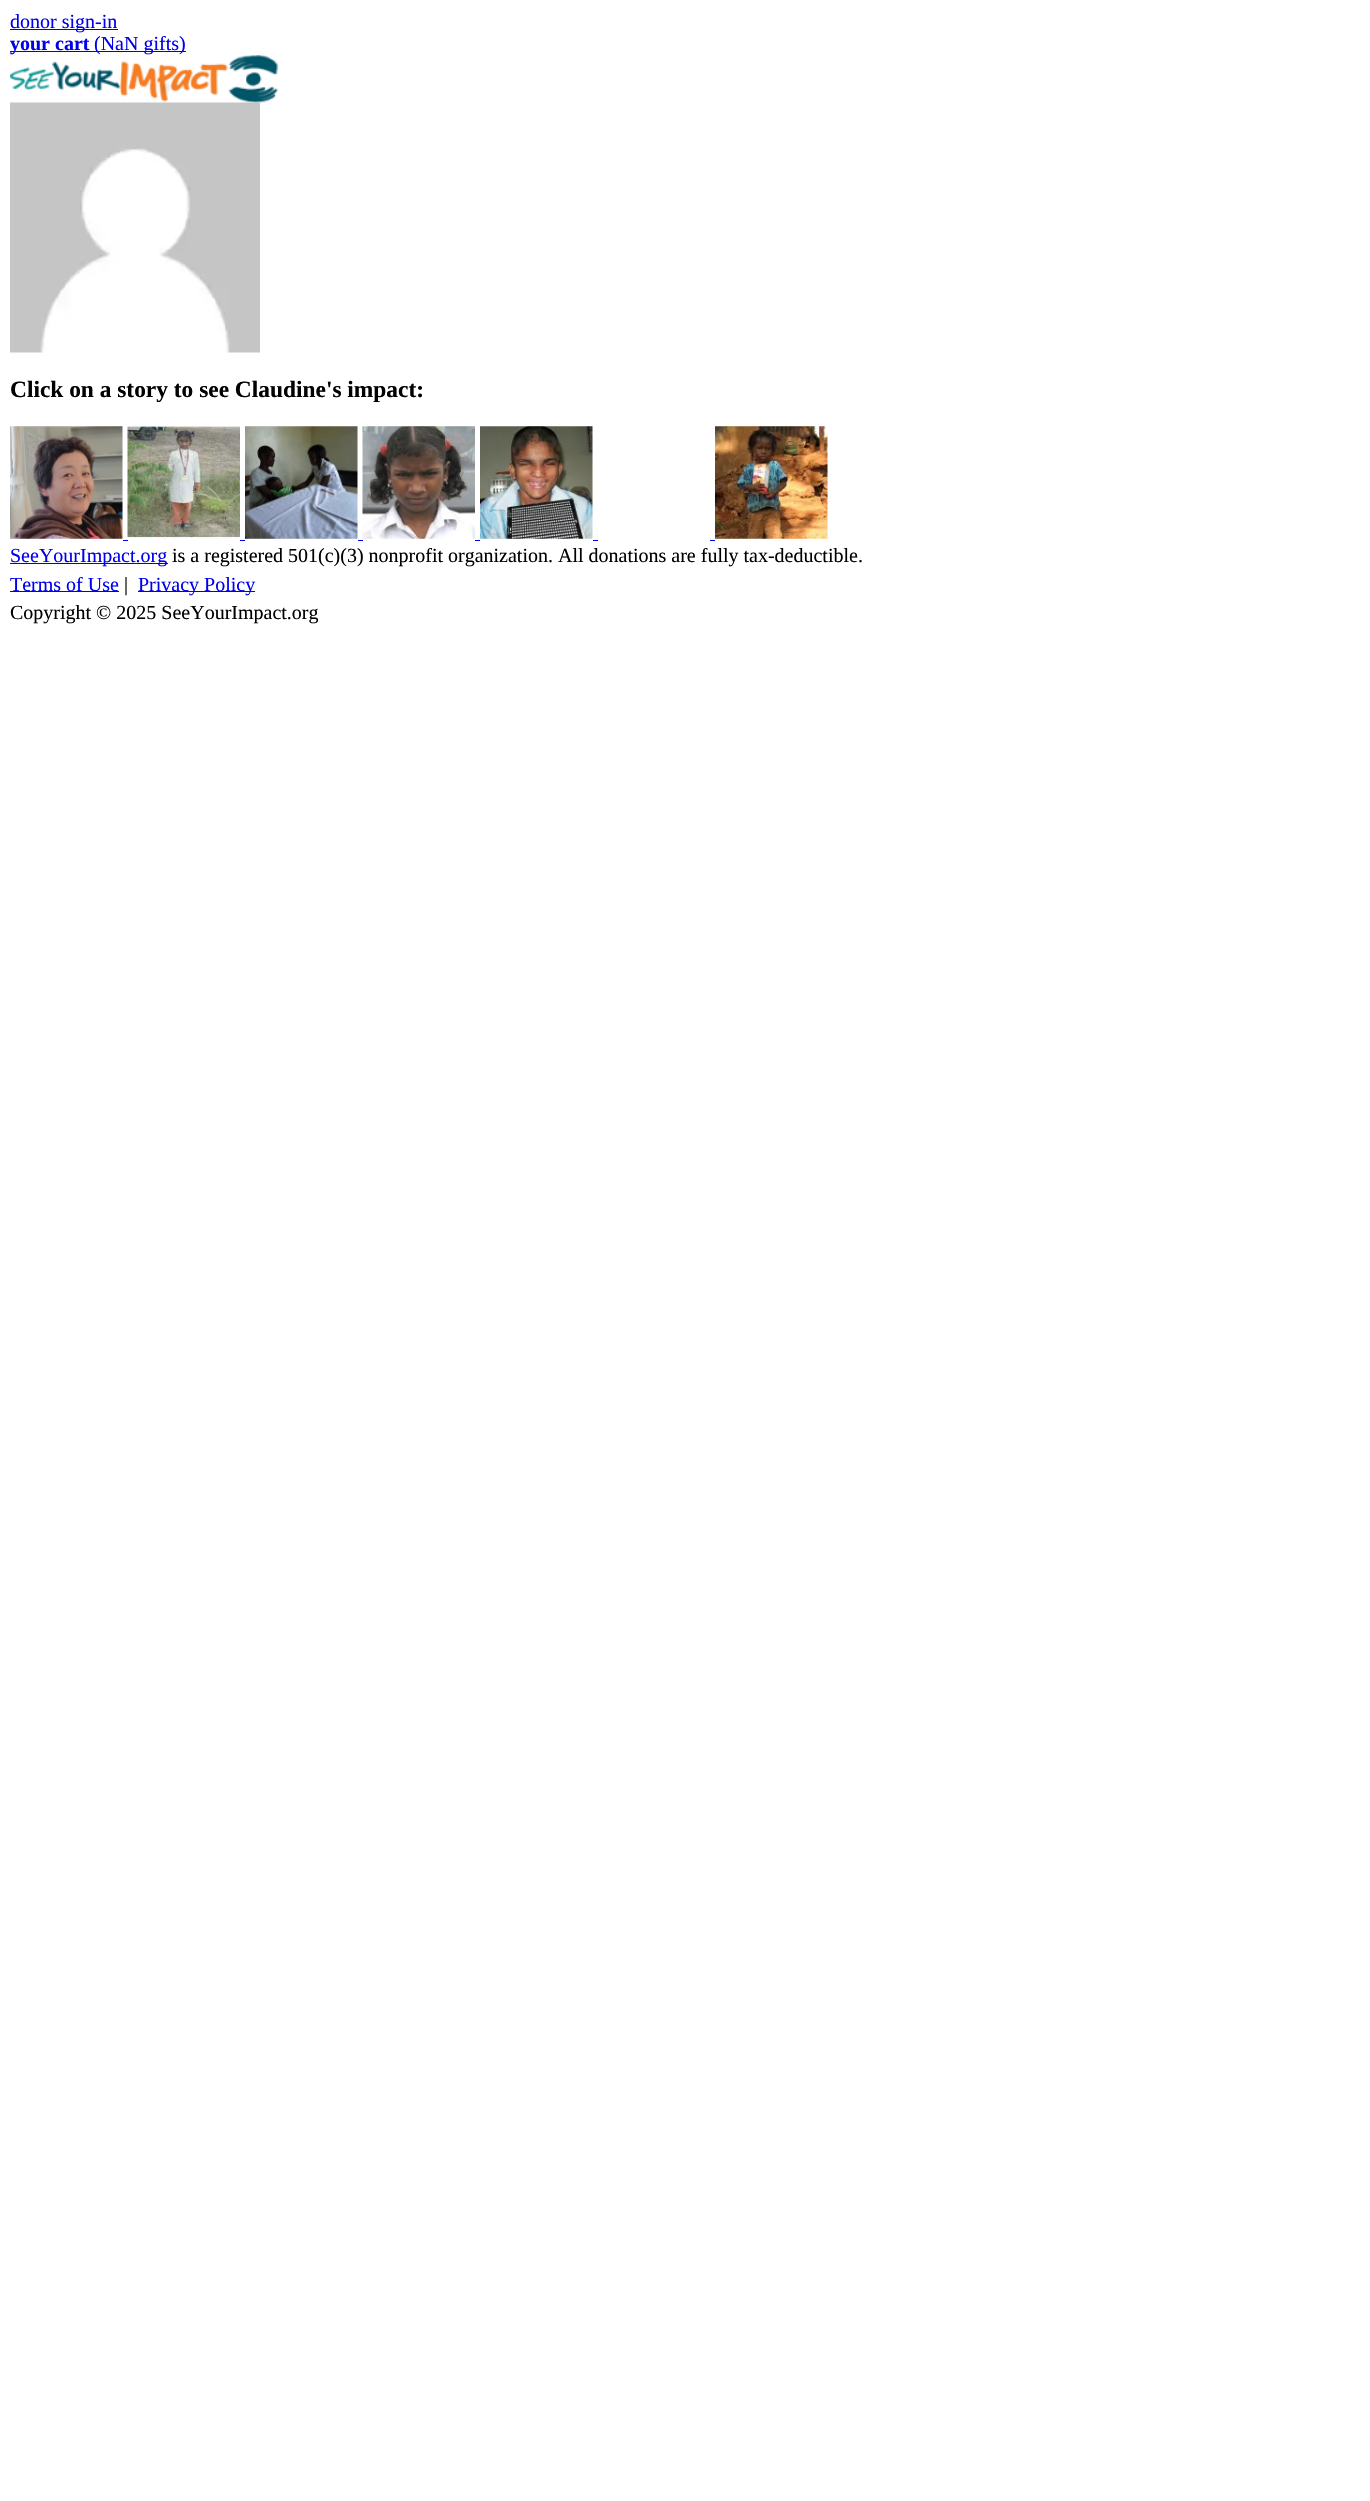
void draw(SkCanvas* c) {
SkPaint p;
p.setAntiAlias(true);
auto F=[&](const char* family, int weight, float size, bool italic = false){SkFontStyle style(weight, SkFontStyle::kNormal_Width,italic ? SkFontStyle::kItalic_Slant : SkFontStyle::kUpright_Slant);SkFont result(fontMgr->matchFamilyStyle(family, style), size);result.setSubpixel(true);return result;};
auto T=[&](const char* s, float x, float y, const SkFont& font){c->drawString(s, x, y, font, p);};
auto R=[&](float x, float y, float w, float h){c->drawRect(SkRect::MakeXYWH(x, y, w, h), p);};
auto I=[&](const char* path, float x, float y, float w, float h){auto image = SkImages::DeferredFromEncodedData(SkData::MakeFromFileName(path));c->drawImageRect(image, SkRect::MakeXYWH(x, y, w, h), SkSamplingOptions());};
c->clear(0xffffffff);
p.setColor(0xff0000ee);
R(10,29,108,1);
auto f1 = F("Liberation Serif",400,20);
T("donor sign-in",10,28,f1);
R(10,51,176,1);
auto f2 = F("Liberation Serif",700,20);
T("your cart",10,50,f2);
T("(NaN gifts)",94,50,f1);
I("1.png",10,55,269,48);
I("2.png",10,102,250,251);
auto f3 = F("Liberation Serif",700,23.4);
p.setColor(0xff000000);
T("Click on a story to see Claudine's impact:",10,397,f3);
I("3.png",10,426,113,113);
I("4.png",127,426,113,113);
I("5.png",245,426,113,113);
I("6.png",362,426,113,113);
I("7.png",480,426,113,113);
I("8.png",715,426,113,113);
p.setColor(0xff0000ee);
R(123,540,5,1);
R(240,540,5,1);
R(358,540,5,1);
R(475,540,5,1);
R(593,540,5,1);
R(710,540,5,1);
R(10,563,158,1);
T("SeeYourImpact.org",10,562,f1);
p.setColor(0xff000000);
T("is a registered 501(c)(3) nonprofit organization. All donations are fully tax-deductible.",172,562,f1);
p.setColor(0xff0000ee);
R(10,591,109,1);
T("Terms of Use",10,591,f1);
p.setColor(0xff000000);
T("|",124,591,f1);
p.setColor(0xff0000ee);
R(138,591,117,1);
T("Privacy Policy",138,591,f1);
p.setColor(0xff000000);
T("Copyright © 2025 SeeYourImpact.org",10,619,f1);
}
